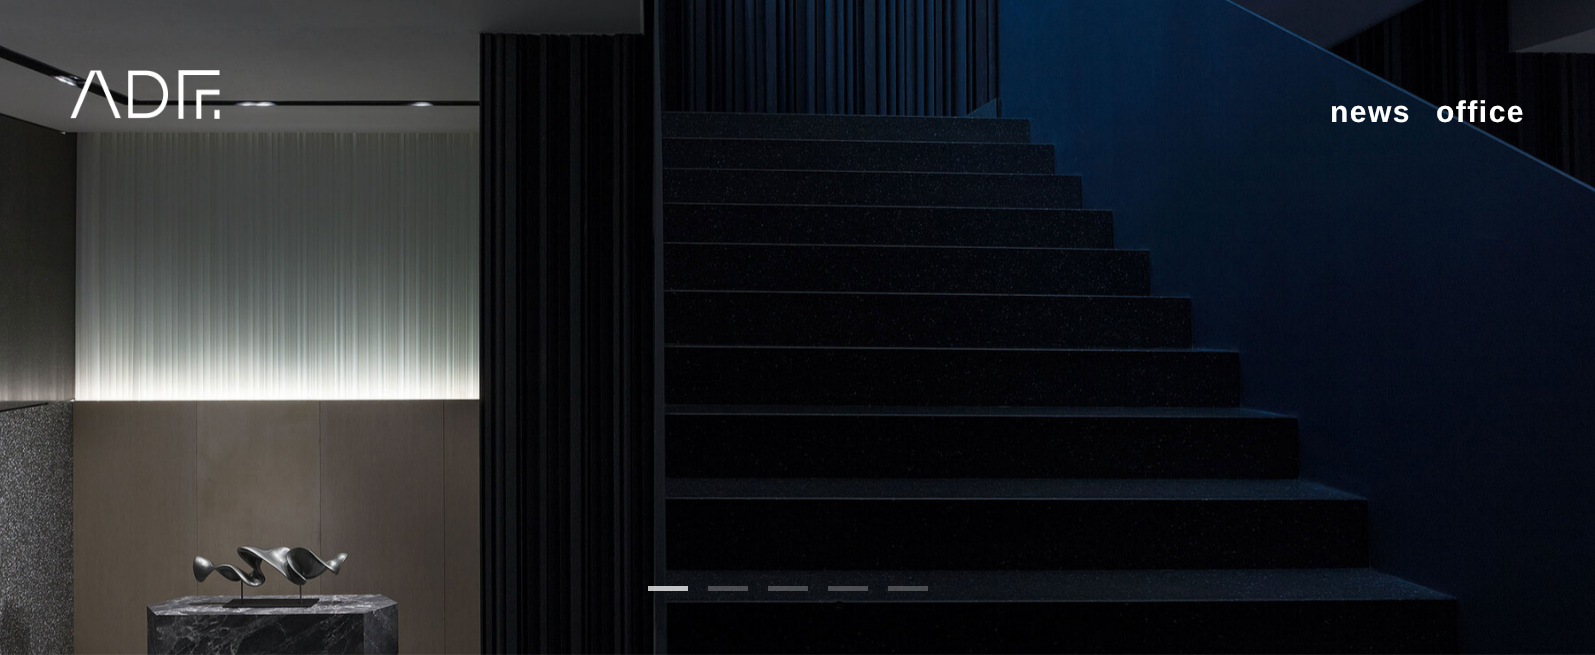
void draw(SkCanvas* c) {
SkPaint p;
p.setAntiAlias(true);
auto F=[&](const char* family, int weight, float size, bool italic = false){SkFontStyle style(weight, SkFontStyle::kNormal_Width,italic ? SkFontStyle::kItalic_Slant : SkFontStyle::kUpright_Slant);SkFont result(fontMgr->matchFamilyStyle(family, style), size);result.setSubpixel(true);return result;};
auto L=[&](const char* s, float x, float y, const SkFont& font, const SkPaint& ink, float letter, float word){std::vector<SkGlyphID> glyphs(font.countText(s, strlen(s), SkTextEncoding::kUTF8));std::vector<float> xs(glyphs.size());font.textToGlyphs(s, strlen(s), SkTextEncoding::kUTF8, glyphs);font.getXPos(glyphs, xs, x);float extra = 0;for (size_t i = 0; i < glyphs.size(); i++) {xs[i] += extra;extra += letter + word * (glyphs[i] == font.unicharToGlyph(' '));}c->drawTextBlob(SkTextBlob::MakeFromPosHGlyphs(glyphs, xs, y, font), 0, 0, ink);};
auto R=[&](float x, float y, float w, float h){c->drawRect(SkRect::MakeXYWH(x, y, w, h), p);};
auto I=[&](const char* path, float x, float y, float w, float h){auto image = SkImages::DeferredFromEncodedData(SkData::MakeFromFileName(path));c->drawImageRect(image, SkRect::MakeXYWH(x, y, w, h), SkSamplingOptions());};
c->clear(0xffffffff);
I("1.png",0,0,1595,655);
p.setColor(0xbfffffff);
R(648,586,40,5);
p.setColor(0x40ffffff);
R(708,586,40,5);
R(768,586,40,5);
R(828,586,40,5);
R(888,586,40,5);
I("2.png",70,70,150,49);
auto f1 = F("Liberation Sans",700,30);
p.setColor(0xffffffff);
L("news",1330,122,f1,p,1.5,0);
L("office",1436,122,f1,p,1.5,0);
}
